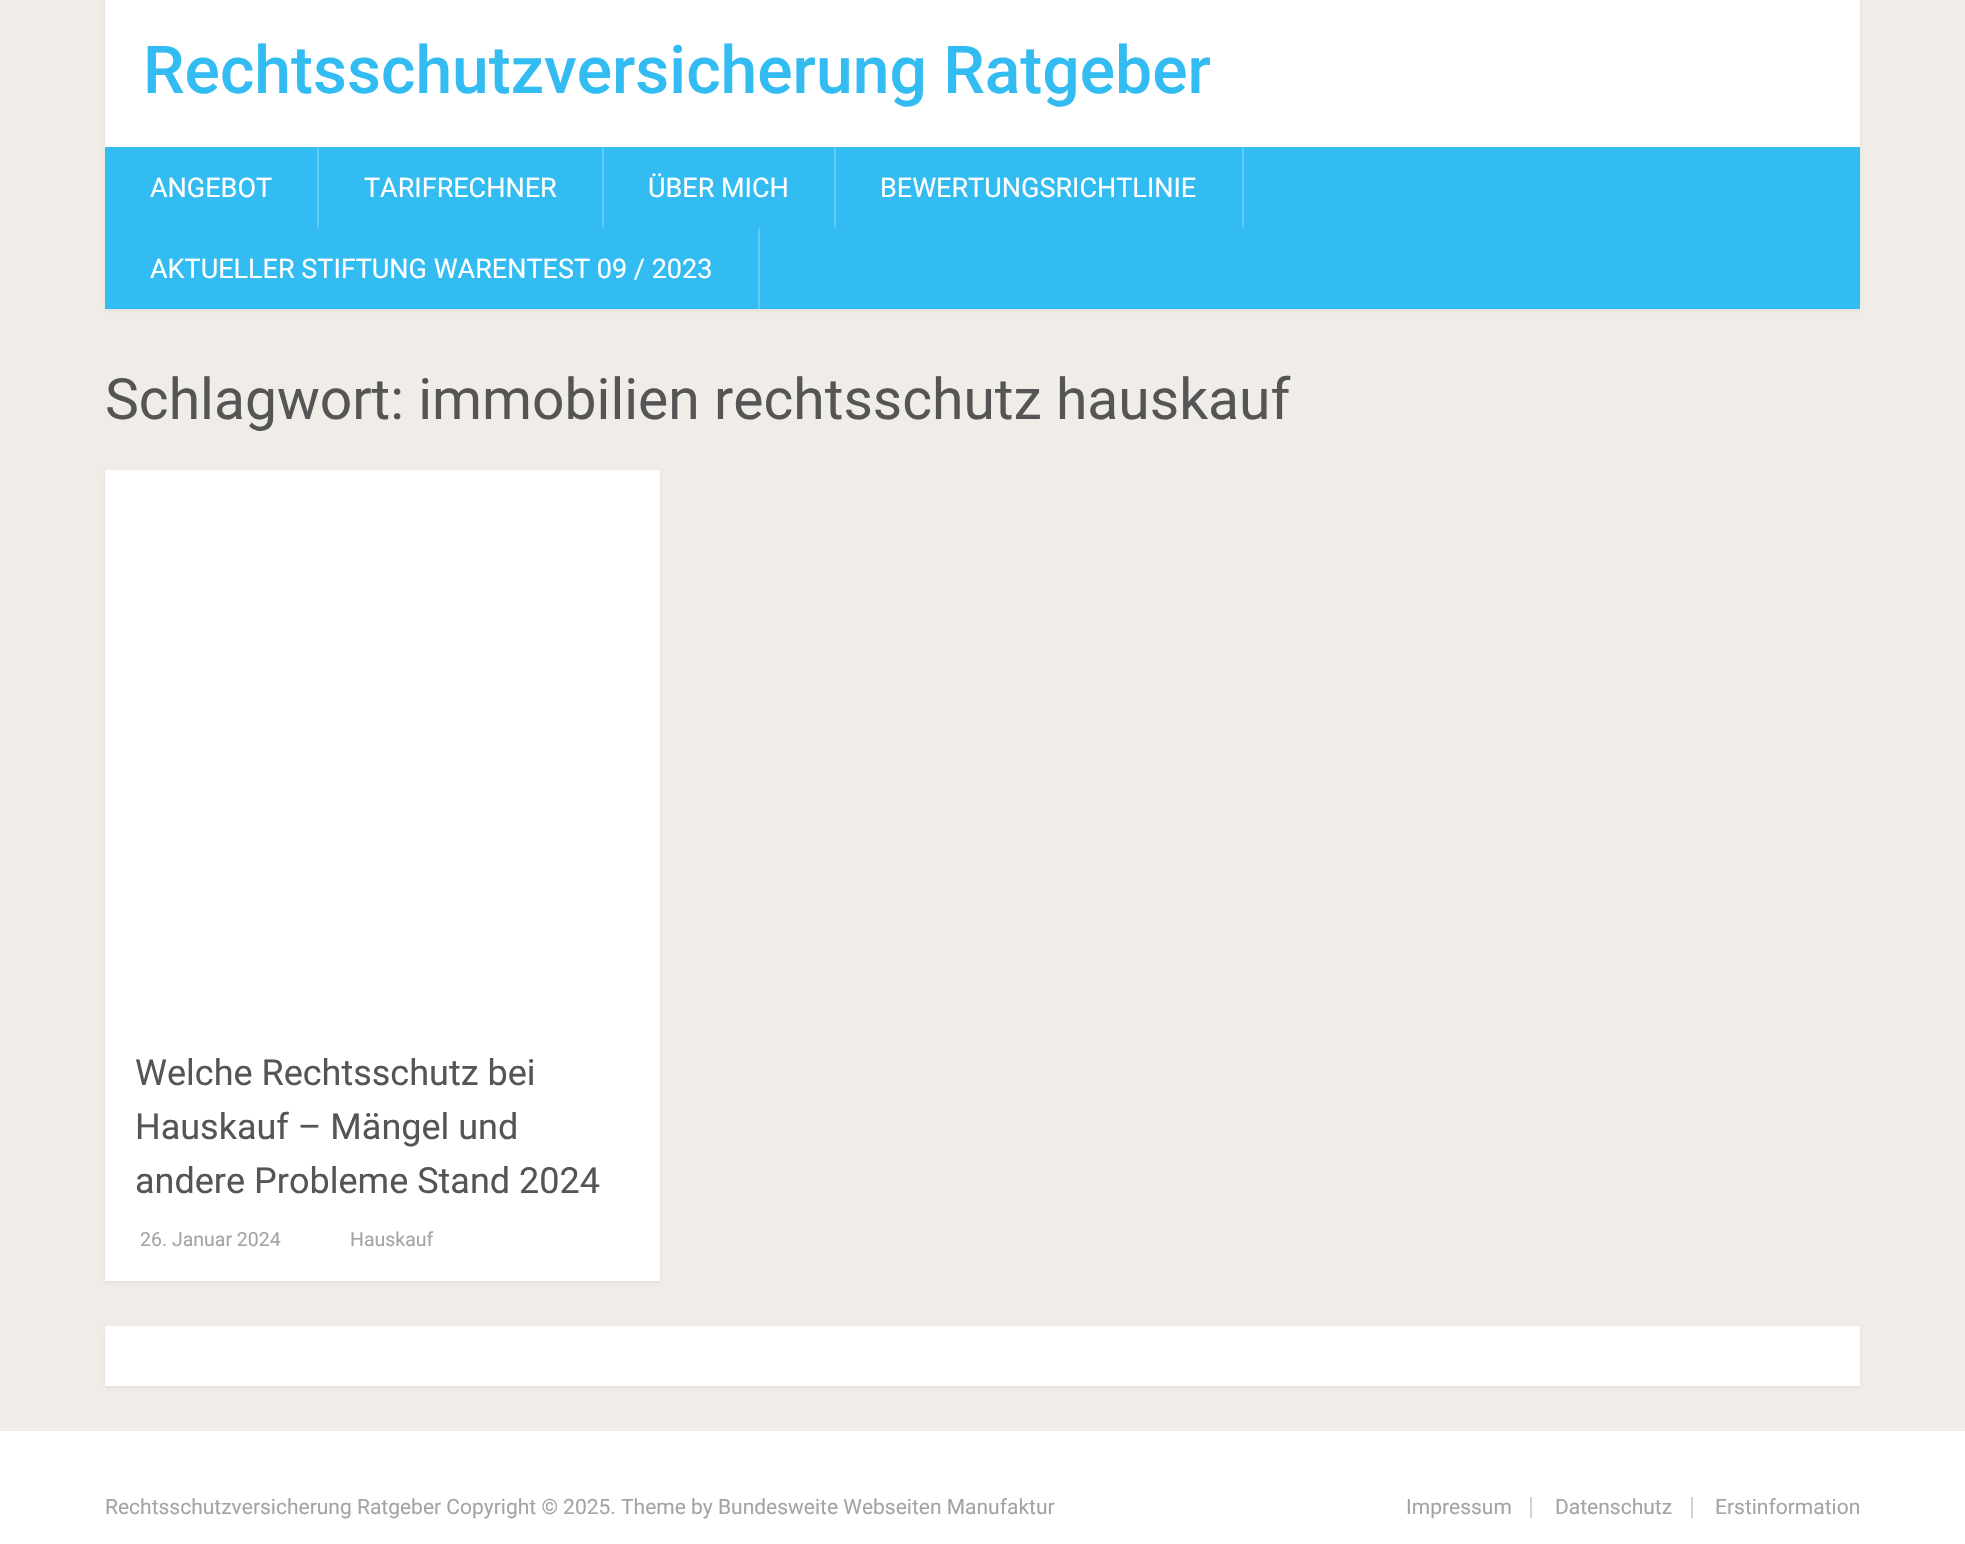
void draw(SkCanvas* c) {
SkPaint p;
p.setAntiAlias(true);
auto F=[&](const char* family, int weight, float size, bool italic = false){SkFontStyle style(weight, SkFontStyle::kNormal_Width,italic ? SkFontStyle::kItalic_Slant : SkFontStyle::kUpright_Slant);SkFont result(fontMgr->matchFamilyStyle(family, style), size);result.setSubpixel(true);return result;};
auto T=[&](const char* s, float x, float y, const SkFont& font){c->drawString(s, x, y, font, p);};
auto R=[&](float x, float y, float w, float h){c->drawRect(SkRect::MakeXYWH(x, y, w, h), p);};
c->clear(0xfff0ede9);
p.setColor(0x0d000000);
p.setMaskFilter(SkMaskFilter::MakeBlur(kNormal_SkBlurStyle, 1.5));
c->drawRect(SkRect::MakeXYWH(105,-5,1755,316),p);
p.setMaskFilter(nullptr);
p.setColor(0xffffffff);
R(105,0,1755,147);
auto f1 = F("Roboto",500,66);
p.setColor(0xff33bcf2);
T("Rechtsschutzversicherung Ratgeber",143,93,f1);
R(105,147,1755,162);
p.setColor(0xff60cbf5);
R(317,147,2,81);
auto f2 = F("Roboto",400,27);
p.setColor(0xffffffff);
T("ANGEBOT",150,197,f2);
p.setColor(0xff60cbf5);
R(602,147,2,81);
p.setColor(0xffffffff);
T("TARIFRECHNER",364,197,f2);
p.setColor(0xff60cbf5);
R(834,147,2,81);
p.setColor(0xffffffff);
T("ÜBER MICH",648,197,f2);
p.setColor(0xff60cbf5);
R(1242,147,2,81);
p.setColor(0xffffffff);
T("BEWERTUNGSRICHTLINIE",880,197,f2);
p.setColor(0xff60cbf5);
R(758,228,2,81);
p.setColor(0xffffffff);
T("AKTUELLER STIFTUNG WARENTEST 09 / 2023",150,278,f2);
auto f3 = F("Roboto",400,57);
p.setColor(0xff555555);
T("Schlagwort: immobilien rechtsschutz hauskauf",105,419,f3);
p.setColor(0x0d000000);
p.setMaskFilter(SkMaskFilter::MakeBlur(kNormal_SkBlurStyle, 1.5));
c->drawRect(SkRect::MakeXYWH(105,471,555,812),p);
p.setMaskFilter(nullptr);
p.setColor(0xffffffff);
R(105,470,555,811);
auto f4 = F("Roboto",400,36);
p.setColor(0xff555555);
T("Welche Rechtsschutz bei",135,1085,f4);
T("Hauskauf – Mängel und",135,1139,f4);
T("andere Probleme Stand 2024",135,1193,f4);
auto f5 = F("Roboto",400,19.5);
p.setColor(0xffa4a4a4);
T("26. Januar 2024",140,1246,f5);
T("Hauskauf",350,1246,f5);
p.setColor(0x0d000000);
p.setMaskFilter(SkMaskFilter::MakeBlur(kNormal_SkBlurStyle, 1.5));
c->drawRect(SkRect::MakeXYWH(105,1328,1755,60),p);
p.setMaskFilter(nullptr);
p.setColor(0xffffffff);
R(105,1326,1755,60);
R(0,1431,1965,113);
auto f6 = F("Roboto",400,21);
p.setColor(0xffa4a4a4);
T("Rechtsschutzversicherung Ratgeber Copyright © 2025. Theme by Bundesweite Webseiten Manufaktur",105,1514,f6);
p.setColor(0xffd2d2d2);
R(1530,1497,2,21);
p.setColor(0xffa4a4a4);
T("Impressum",1406,1514,f6);
p.setColor(0xffd2d2d2);
R(1691,1497,2,21);
p.setColor(0xffa4a4a4);
T("Datenschutz",1555,1514,f6);
T("Erstinformation",1715,1514,f6);
}
